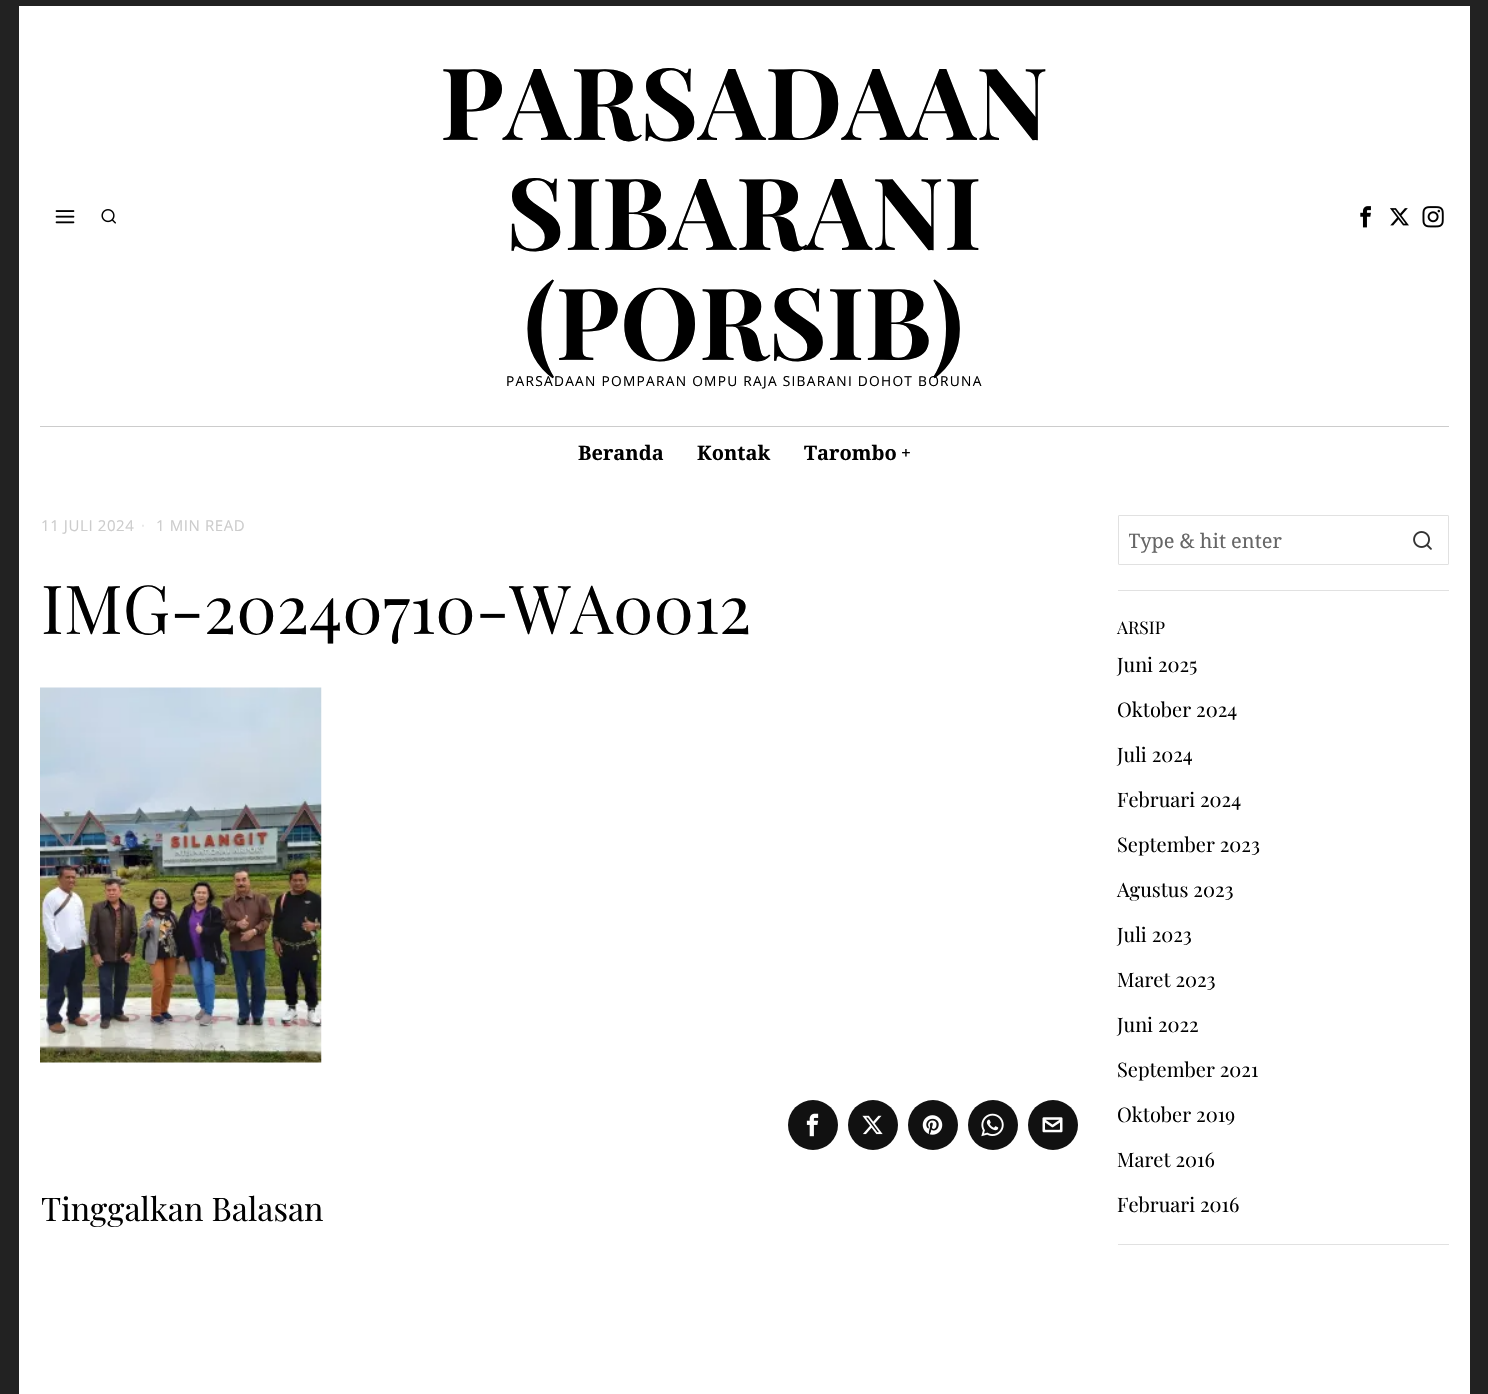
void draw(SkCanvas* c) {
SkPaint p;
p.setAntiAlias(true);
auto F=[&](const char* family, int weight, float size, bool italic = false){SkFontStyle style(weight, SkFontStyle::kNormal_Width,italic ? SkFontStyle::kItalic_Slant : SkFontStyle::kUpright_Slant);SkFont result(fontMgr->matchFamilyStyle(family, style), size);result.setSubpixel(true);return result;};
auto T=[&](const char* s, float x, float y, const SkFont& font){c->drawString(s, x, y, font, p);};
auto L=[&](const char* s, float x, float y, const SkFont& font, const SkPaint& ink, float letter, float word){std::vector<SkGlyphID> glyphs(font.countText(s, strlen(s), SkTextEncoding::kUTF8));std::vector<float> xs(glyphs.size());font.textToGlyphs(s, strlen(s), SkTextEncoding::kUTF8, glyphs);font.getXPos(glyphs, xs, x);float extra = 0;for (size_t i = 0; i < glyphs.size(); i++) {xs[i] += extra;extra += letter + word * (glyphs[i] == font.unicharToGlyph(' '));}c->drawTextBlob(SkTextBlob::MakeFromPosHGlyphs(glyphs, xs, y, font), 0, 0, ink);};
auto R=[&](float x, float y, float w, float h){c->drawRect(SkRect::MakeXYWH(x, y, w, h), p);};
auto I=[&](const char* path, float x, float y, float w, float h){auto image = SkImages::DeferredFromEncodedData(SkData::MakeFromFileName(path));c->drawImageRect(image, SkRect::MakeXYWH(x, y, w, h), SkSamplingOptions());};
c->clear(0xffffffff);
p.setColor(0xff222222);
R(19,0,1451,6);
R(1470,0,18,1394);
R(0,0,19,1394);
I("1.png",55,210,20,14);
I("2.png",101,209,15,15);
auto f1 = F("Playfair Display",700,100);
p.setColor(0xff000000);
T("PARSADAAN",440,140,f1);
T("SIBARANI",506,250,f1);
T("(PORSIB)",524,360,f1);
auto f2 = F("Open Sans",400,13.75);
L("PARSADAAN POMPARAN OMPU RAJA SIBARANI DOHOT BORUNA",506,386,f2,p,1.25,0);
I("3.png",1360,206,11,22);
I("4.png",1390,208,19,18);
I("5.png",1422,206,22,22);
p.setColor(0xffcccccc);
R(40,426,1409,1);
auto f3 = F("Noto Serif",700,20);
p.setColor(0xff000000);
T("Beranda",578,460,f3);
T("Kontak",697,460,f3);
T("Tarombo",804,460,f3);
auto f4 = F("Noto Serif",700,17.5);
T("+",901,459,f4);
auto f5 = F("Open Sans",400,15);
p.setColor(0xffcccccc);
L("11 JULI 2024",41,531,f5,p,.6,0);
p.setColor(0xffe6e6e6);
L("·",141,531,f5,p,.6,0);
p.setColor(0xffcccccc);
L("1 MIN READ",156,531,f5,p,.6,0);
auto f6 = F("Playfair Display",400,67.5);
p.setColor(0xff000000);
T("IMG-20240710-WA0012",41,634,f6);
I("6.png",40,687,282,376);
p.setColor(0xff111111);
c->drawCircle(813,1125,25,p);
I("7.png",806,1113,13,24);
c->drawCircle(873,1125,25,p);
I("8.png",862,1115,21,20);
c->drawCircle(933,1125,25,p);
I("9.png",922,1115,21,20);
c->drawCircle(993,1125,25,p);
I("10.png",981,1113,23,24);
c->drawCircle(1053,1125,25,p);
I("11.png",1042,1117,21,16);
auto f7 = F("Playfair Display",400,32.5);
p.setColor(0xff000000);
T("Tinggalkan Balasan",41,1221,f7);
p.setStroke(true);
p.setStrokeWidth(1);
p.setColor(0xffe1e1e1);
c->drawRoundRect(SkRect::MakeXYWH(1118.5,515.5,330,49),.5,.5,p);
c->save();
c->clipRect(SkRect::MakeXYWH(1129,526,269,28));
auto f8 = F("Noto Serif",400,20);
p.setStroke(false);
p.setColor(0xff666666);
T("Type & hit enter",1128,548,f8);
c->restore();
I("12.png",1413,531,19,19);
p.setColor(0xffe1e1e1);
R(1118,590,331,1);
auto f9 = F("Playfair Display",400,17.5);
p.setColor(0xff000000);
T("ARSIP",1117,634,f9);
auto f10 = F("Playfair Display",400,20);
T("Juni 2025",1117,672,f10);
T("Oktober 2024",1117,717,f10);
T("Juli 2024",1117,762,f10);
T("Februari 2024",1117,807,f10);
T("September 2023",1117,852,f10);
T("Agustus 2023",1117,897,f10);
T("Juli 2023",1117,942,f10);
T("Maret 2023",1117,987,f10);
T("Juni 2022",1117,1032,f10);
T("September 2021",1117,1077,f10);
T("Oktober 2019",1117,1122,f10);
T("Maret 2016",1117,1167,f10);
T("Februari 2016",1117,1212,f10);
p.setColor(0xffe1e1e1);
R(1118,1244,331,1);
}
